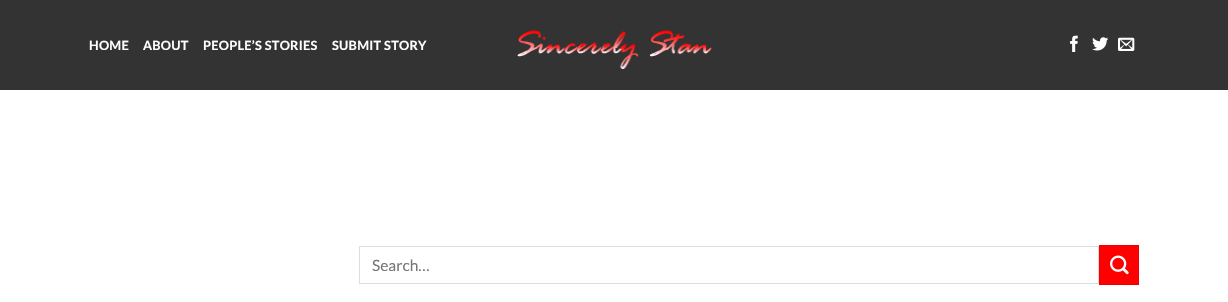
void draw(SkCanvas* c) {
SkPaint p;
p.setAntiAlias(true);
auto F=[&](const char* family, int weight, float size, bool italic = false){SkFontStyle style(weight, SkFontStyle::kNormal_Width,italic ? SkFontStyle::kItalic_Slant : SkFontStyle::kUpright_Slant);SkFont result(fontMgr->matchFamilyStyle(family, style), size);result.setSubpixel(true);return result;};
auto T=[&](const char* s, float x, float y, const SkFont& font){c->drawString(s, x, y, font, p);};
auto L=[&](const char* s, float x, float y, const SkFont& font, const SkPaint& ink, float letter, float word){std::vector<SkGlyphID> glyphs(font.countText(s, strlen(s), SkTextEncoding::kUTF8));std::vector<float> xs(glyphs.size());font.textToGlyphs(s, strlen(s), SkTextEncoding::kUTF8, glyphs);font.getXPos(glyphs, xs, x);float extra = 0;for (size_t i = 0; i < glyphs.size(); i++) {xs[i] += extra;extra += letter + word * (glyphs[i] == font.unicharToGlyph(' '));}c->drawTextBlob(SkTextBlob::MakeFromPosHGlyphs(glyphs, xs, y, font), 0, 0, ink);};
auto R=[&](float x, float y, float w, float h){c->drawRect(SkRect::MakeXYWH(x, y, w, h), p);};
auto I=[&](const char* path, float x, float y, float w, float h){auto image = SkImages::DeferredFromEncodedData(SkData::MakeFromFileName(path));c->drawImageRect(image, SkRect::MakeXYWH(x, y, w, h), SkSamplingOptions());};
c->clear(0xffffffff);
p.setColor(0xff333333);
R(0,0,1228,90);
auto f1 = F("Lato",700,12.75);
p.setColor(0xffffffff);
L("HOME",89,50,f1,p,.25,0);
L("ABOUT",143,50,f1,p,.25,0);
L("PEOPLE’S STORIES",203,50,f1,p,.25,0);
L("SUBMIT STORY",332,50,f1,p,.25,0);
I("1.png",517,30,195,39);
I("2.png",1070,35,8,17);
I("3.png",1092,37,17,14);
I("4.png",1118,37,17,14);
p.setStroke(true);
p.setStrokeWidth(1);
p.setColor(0xffdddddd);
c->drawRect(SkRect::MakeXYWH(359.5,246.5,739,37),p);
auto f2 = F("Lato",400,15.5);
p.setStroke(false);
p.setColor(0xff757575);
T("Search…",372,271,f2);
p.setColor(0xffff0000);
c->drawRect(SkRect::MakeXYWH(1099.5,245.5,39,39),p);
p.setStroke(true);
p.setColor(0xfff20000);
c->drawRect(SkRect::MakeXYWH(1099.5,245.5,39,39),p);
I("5.png",1110,255,19,20);
}
